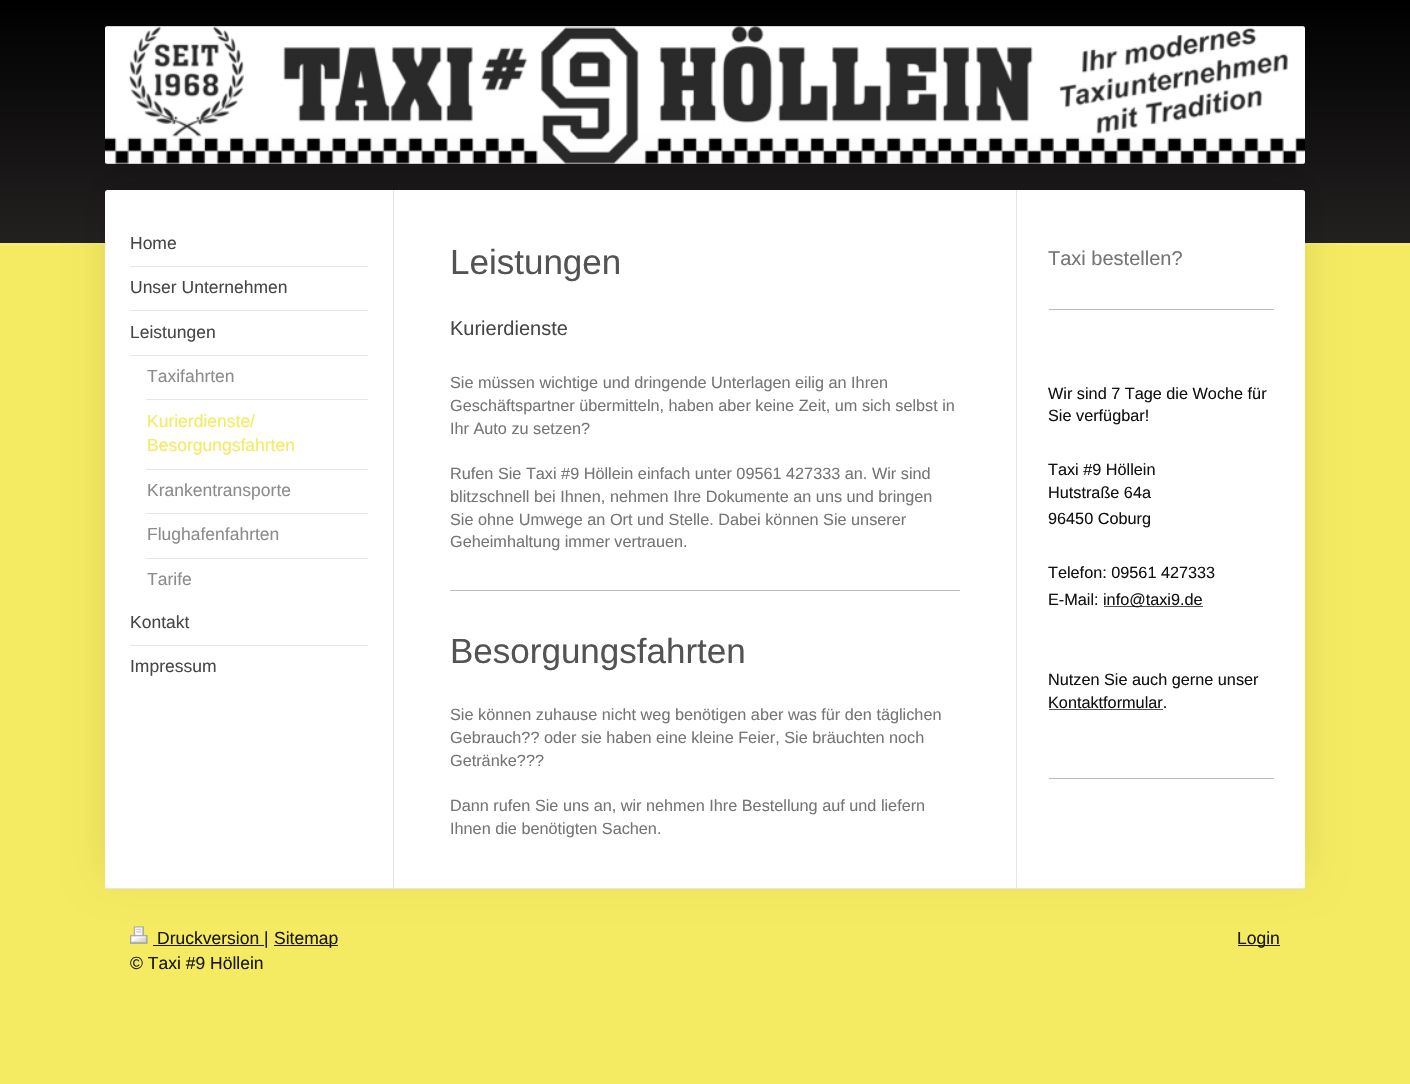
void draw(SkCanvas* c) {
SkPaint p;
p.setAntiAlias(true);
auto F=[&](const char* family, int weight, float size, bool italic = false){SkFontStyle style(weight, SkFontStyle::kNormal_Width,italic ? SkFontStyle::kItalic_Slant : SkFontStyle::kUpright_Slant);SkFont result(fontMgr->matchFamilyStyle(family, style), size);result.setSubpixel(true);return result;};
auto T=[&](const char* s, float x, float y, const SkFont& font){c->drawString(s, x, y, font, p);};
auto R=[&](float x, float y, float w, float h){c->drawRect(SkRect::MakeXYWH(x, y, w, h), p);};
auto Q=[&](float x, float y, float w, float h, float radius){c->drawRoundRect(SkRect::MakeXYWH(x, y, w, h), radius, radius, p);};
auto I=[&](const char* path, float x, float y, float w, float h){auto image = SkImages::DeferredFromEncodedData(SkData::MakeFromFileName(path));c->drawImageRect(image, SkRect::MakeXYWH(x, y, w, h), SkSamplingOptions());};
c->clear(0xfff5eb62);
p.setColor(0x1affffff);
p.setMaskFilter(SkMaskFilter::MakeBlur(kNormal_SkBlurStyle, .5));
c->drawRect(SkRect::MakeXYWH(0,3,1410,242),p);
p.setMaskFilter(nullptr);
{
const SkColor colors[] = {0xff232020,0xff000000};
const float stops[] = {0,1};
const SkPoint ends[] = {{0,243}, {0,0}};
p.setShader(SkGradientShader::MakeLinear(ends, colors, stops, 2, SkTileMode::kClamp));
p.setAlpha(255);
}
R(0,0,1410,243);
p.setShader(nullptr);
p.setColor(0xffa0a0a0);
Q(105,26,1200,138,2.5);
I("1.png",105,26,1200,138);
p.setColor(0x1a000000);
p.setMaskFilter(SkMaskFilter::MakeBlur(kNormal_SkBlurStyle, 19));
c->drawRoundRect(SkRect::MakeXYWH(105,178,1200,698),2.5,2.5,p);
p.setMaskFilter(nullptr);
p.setColor(0xffffffff);
Q(105,190,1200,699,2.5);
p.setColor(0xffe6e6e6);
R(106,888,1198,1);
R(130,266,238,1);
auto f1 = F("Liberation Sans",400,17.5);
p.setColor(0xff474747);
T("Home",130,249,f1);
p.setColor(0xffe6e6e6);
R(130,310,238,1);
p.setColor(0xff474747);
T("Unser Unternehmen",130,293,f1);
p.setColor(0xffe6e6e6);
R(130,355,238,1);
p.setColor(0xff474747);
T("Leistungen",130,338,f1);
p.setColor(0xffe6e6e6);
R(146,399,222,1);
p.setColor(0xff8c8c8c);
T("Taxifahrten",147,382,f1);
p.setColor(0xffe6e6e6);
R(146,469,222,1);
p.setColor(0xfff5eb62);
T("Kurierdienste/",147,427,f1);
T("Besorgungsfahrten",147,451,f1);
p.setColor(0xffe6e6e6);
R(146,513,222,1);
p.setColor(0xff8c8c8c);
T("Krankentransporte",147,496,f1);
p.setColor(0xffe6e6e6);
R(146,558,222,1);
p.setColor(0xff8c8c8c);
T("Flughafenfahrten",147,540,f1);
T("Tarife",147,585,f1);
p.setColor(0xffe6e6e6);
R(130,645,238,1);
p.setColor(0xff474747);
T("Kontakt",130,628,f1);
T("Impressum",130,672,f1);
p.setColor(0xffe6e6e6);
R(1016,190,1,698);
R(393,190,1,698);
auto f2 = F("Liberation Sans",400,35);
p.setColor(0xff535353);
T("Leistungen",450,274,f2);
auto f3 = F("Liberation Sans",400,20);
p.setColor(0xff474747);
T("Kurierdienste",450,335,f3);
auto f4 = F("Liberation Sans",400,16.25);
p.setColor(0xff757575);
T("Sie müssen wichtige und dringende Unterlagen eilig an Ihren",450,388,f4);
T("Geschäftspartner übermitteln, haben aber keine Zeit, um sich selbst in",450,411,f4);
T("Ihr Auto zu setzen?",450,434,f4);
T("Rufen Sie Taxi #9 Höllein einfach unter 09561 427333 an. Wir sind",450,479,f4);
T("blitzschnell bei Ihnen, nehmen Ihre Dokumente an uns und bringen",450,502,f4);
T("Sie ohne Umwege an Ort und Stelle. Dabei können Sie unserer",450,525,f4);
T("Geheimhaltung immer vertrauen.",450,547,f4);
p.setColor(0xffbababa);
R(450,590,510,1);
p.setColor(0xff535353);
T("Besorgungsfahrten",450,663,f2);
p.setColor(0xff757575);
T("Sie können zuhause nicht weg benötigen aber was für den täglichen",450,720,f4);
T("Gebrauch?\077 oder sie haben eine kleine Feier, Sie bräuchten noch",450,743,f4);
T("Getränke?\077?",450,766,f4);
T("Dann rufen Sie uns an, wir nehmen Ihre Bestellung auf und liefern",450,811,f4);
T("Ihnen die benötigten Sachen.",450,834,f4);
T("Taxi bestellen?",1048,265,f3);
p.setColor(0xffbababa);
R(1049,309,225,1);
p.setColor(0xff121211);
T("Wir sind 7 Tage die Woche für",1048,399,f4);
T("Sie verfügbar!",1048,421,f4);
T("Taxi #9 Höllein",1048,475,f4);
T("Hutstraße 64a",1048,498,f4);
T("96450 Coburg",1048,524,f4);
T("Telefon: 09561 427333",1048,578,f4);
T("E-Mail:",1048,605,f4);
p.setColor(0xff535353);
R(1104,606,99,1);
p.setColor(0xff121211);
T("info@taxi9.de",1103,605,f4);
T("Nutzen Sie auch gerne unser",1048,685,f4);
T("Kontaktformular.",1048,708,f4);
p.setColor(0xff535353);
R(1049,709,114,1);
p.setColor(0xffbababa);
R(1049,778,225,1);
I("2.png",130,926,18,18);
p.setColor(0xff19180a);
R(153,945,111,1);
T("Druckversion |",157,944,f1);
R(274,945,64,1);
T("Sitemap",274,944,f1);
T("© Taxi #9 Höllein",130,969,f1);
R(1238,945,42,1);
T("Login",1237,944,f1);
}
